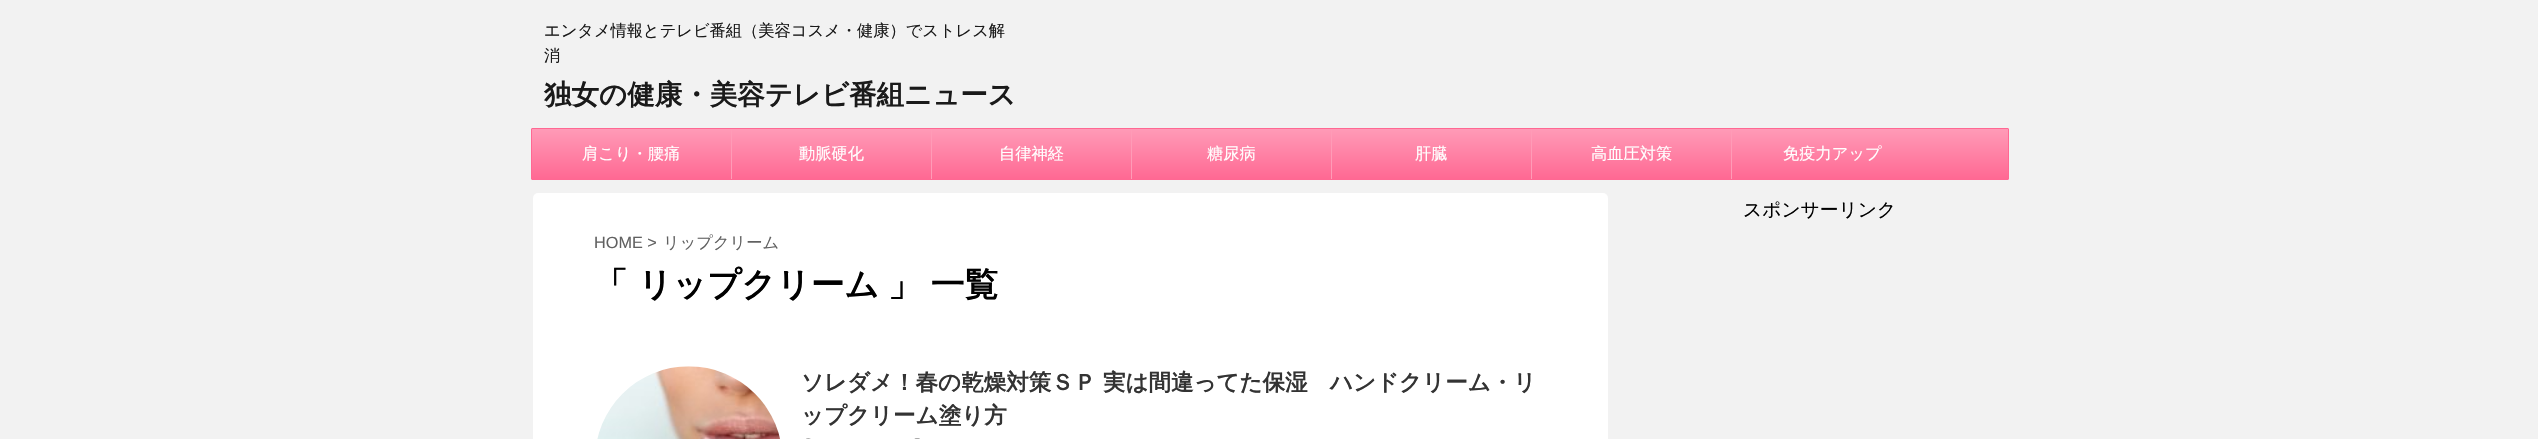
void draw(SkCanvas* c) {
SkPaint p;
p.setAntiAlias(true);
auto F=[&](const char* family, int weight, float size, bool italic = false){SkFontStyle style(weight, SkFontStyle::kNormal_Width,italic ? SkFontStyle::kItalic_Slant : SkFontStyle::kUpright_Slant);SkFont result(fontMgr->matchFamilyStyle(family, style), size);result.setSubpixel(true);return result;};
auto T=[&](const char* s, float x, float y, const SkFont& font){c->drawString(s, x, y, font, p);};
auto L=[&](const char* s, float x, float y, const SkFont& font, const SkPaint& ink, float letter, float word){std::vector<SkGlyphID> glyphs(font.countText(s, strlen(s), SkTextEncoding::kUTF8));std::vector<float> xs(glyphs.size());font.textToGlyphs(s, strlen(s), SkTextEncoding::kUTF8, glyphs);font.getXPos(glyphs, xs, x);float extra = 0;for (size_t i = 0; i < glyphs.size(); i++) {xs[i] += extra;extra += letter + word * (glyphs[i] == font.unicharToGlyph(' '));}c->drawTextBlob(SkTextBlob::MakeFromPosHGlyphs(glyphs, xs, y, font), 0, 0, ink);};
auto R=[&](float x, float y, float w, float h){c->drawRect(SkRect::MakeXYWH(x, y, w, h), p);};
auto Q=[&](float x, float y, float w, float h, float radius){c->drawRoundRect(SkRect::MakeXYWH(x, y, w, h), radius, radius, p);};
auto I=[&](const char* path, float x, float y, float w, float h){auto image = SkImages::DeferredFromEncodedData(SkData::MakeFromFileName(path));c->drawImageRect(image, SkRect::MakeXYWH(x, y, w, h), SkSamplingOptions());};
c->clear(0xfff2f2f2);
auto f1 = F("WenQuanYi Zen Hei",500,16.25);
p.setColor(0xff1a1a1a);
T("エンタメ情報とテレビ番組（美容コスメ・健康）でストレス解",544,36,f1);
T("消",544,61,f1);
auto f2 = F("WenQuanYi Zen Hei",700,27.5);
T("独女の健康・美容テレビ番組ニュース",544,104,f2);
{
const SkColor colors[] = {0xffff9bb7,0xffff6893};
const float stops[] = {0,1};
const SkPoint ends[] = {{1270,129}, {1270,179}};
p.setShader(SkGradientShader::MakeLinear(ends, colors, stops, 2, SkTileMode::kClamp));
p.setAlpha(255);
}
R(532,129,1476,50);
p.setStroke(true);
p.setStrokeWidth(1);
p.setShader(nullptr);
p.setColor(0xffff6893);
c->drawRoundRect(SkRect::MakeXYWH(531.5,128.5,1477,51),.5,.5,p);
p.setStroke(false);
p.setColor(0xffff9bb7);
R(731,129,1,50);
p.setColor(0xffffffff);
T("肩こり・腰痛",582,159,f1);
p.setColor(0xffff9bb7);
R(931,129,1,50);
p.setColor(0xffffffff);
T("動脈硬化",799,159,f1);
p.setColor(0xffff9bb7);
R(1131,129,1,50);
p.setColor(0xffffffff);
T("自律神経",999,159,f1);
p.setColor(0xffff9bb7);
R(1331,129,1,50);
p.setColor(0xffffffff);
T("糖尿病",1207,159,f1);
p.setColor(0xffff9bb7);
R(1531,129,1,50);
p.setColor(0xffffffff);
T("肝臓",1415,159,f1);
p.setColor(0xffff9bb7);
R(1731,129,1,50);
p.setColor(0xffffffff);
T("高血圧対策",1591,159,f1);
T("免疫力アップ",1783,159,f1);
auto f3 = F("WenQuanYi Zen Hei",500,18.75);
p.setColor(0xff000000);
T("スポンサーリンク",1743,216,f3);
p.setColor(0xffffffff);
Q(533,193,1075,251,5);
auto f4 = F("Liberation Sans",400,16.25);
p.setColor(0xff616161);
T("HOME >",594,248,f4);
T("リップクリーム",663,248,f1);
auto f5 = F("WenQuanYi Zen Hei",700,33.75);
p.setColor(0xff000000);
T("「",594,296,f5);
T("リップクリーム",638,296,f5);
L("」 一覧",888,296,f5,p,0,-1);
I("1.png",597,366,183,73);
auto f6 = F("WenQuanYi Zen Hei",700,22.5);
p.setColor(0xff333333);
T("ソレダメ！春の乾燥対策ＳＰ 実は間違ってた保湿　ハンドクリーム・リ",801,390,f6);
T("ップクリーム塗り方",801,423,f6);
I("2.png",806,438,5,1);
I("3.png",914,438,6,1);
}
